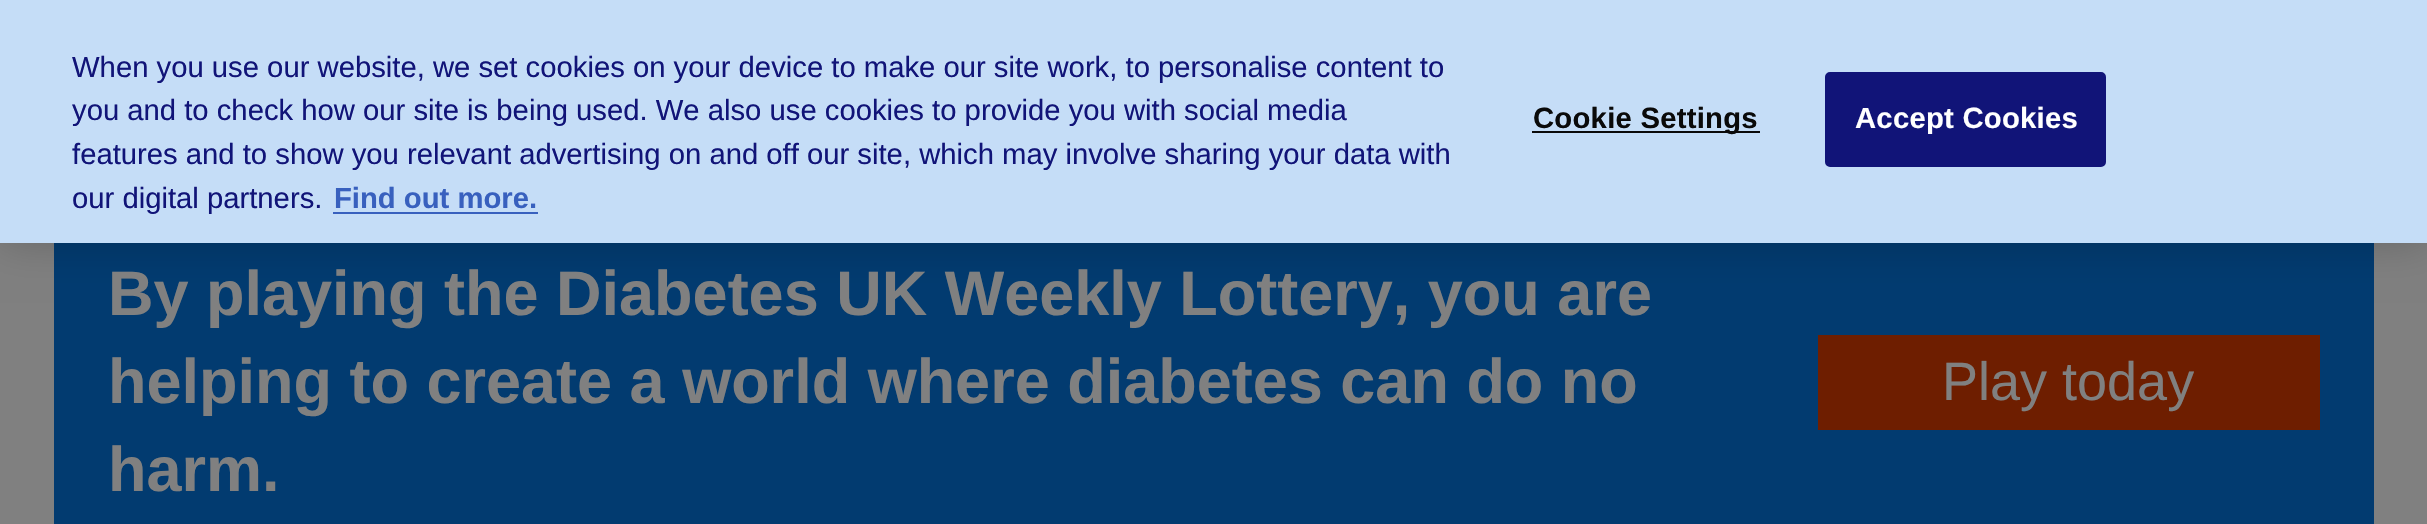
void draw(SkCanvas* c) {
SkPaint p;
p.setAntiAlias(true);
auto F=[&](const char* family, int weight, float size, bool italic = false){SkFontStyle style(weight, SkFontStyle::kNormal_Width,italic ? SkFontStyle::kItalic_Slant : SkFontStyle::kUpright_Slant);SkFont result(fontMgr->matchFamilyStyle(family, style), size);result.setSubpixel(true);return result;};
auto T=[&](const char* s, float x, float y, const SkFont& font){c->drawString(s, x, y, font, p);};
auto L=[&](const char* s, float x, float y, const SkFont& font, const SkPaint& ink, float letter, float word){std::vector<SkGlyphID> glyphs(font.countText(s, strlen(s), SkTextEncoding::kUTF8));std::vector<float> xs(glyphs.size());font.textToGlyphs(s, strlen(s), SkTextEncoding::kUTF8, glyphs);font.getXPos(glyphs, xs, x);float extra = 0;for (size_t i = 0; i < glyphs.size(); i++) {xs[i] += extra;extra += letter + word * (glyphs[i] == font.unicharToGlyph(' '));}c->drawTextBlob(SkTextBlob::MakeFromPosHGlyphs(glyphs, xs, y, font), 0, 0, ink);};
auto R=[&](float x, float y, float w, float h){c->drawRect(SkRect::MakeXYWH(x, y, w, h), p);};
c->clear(0xff808080);
p.setColor(0xff023b70);
R(54,243,2320,281);
p.setColor(0x33000000);
p.setMaskFilter(SkMaskFilter::MakeBlur(kNormal_SkBlurStyle, 20));
c->drawRect(SkRect::MakeXYWH(0,0,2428,243),p);
p.setMaskFilter(nullptr);
p.setColor(0xffc5ddf7);
R(0,0,2427,243);
auto f1 = F("Liberation Sans",400,29.25);
p.setColor(0xff111478);
T("When you use our website, we set cookies on your device to make our site work, to personalise content to",72,77,f1);
T("you and to check how our site is being used. We also use cookies to provide you with social media",72,120,f1);
T("features and to show you relevant advertising on and off our site, which may involve sharing your data with",72,164,f1);
T("our digital partners.",72,208,f1);
auto f2 = F("Liberation Sans",700,29.25);
p.setColor(0xff3860be);
T("Find out more.",334,208,f2);
R(333,212,205,2);
p.setColor(0xff0a0a0a);
R(1532,131,228,2);
L("Cookie Settings",1533,128,f2,p,.25,0);
p.setColor(0xff111478);
c->drawRoundRect(SkRect::MakeXYWH(1826,73,279,93),4,4,p);
p.setStroke(true);
p.setStrokeWidth(2);
c->drawRoundRect(SkRect::MakeXYWH(1826,73,279,93),4,4,p);
p.setStroke(false);
p.setColor(0xffffffff);
L("Accept Cookies",1855,128,f2,p,.25,0);
auto f3 = F("Liberation Sans",700,63);
p.setColor(0xff808080);
T("By playing the Diabetes UK Weekly Lottery, you are",108,315,f3);
T("helping to create a world where diabetes can do no",108,403,f3);
T("harm.",108,491,f3);
p.setColor(0xff6e1e00);
R(1818,335,502,95);
auto f4 = F("Liberation Sans",400,54);
p.setColor(0xff808080);
T("Play today",1942,400,f4);
}
